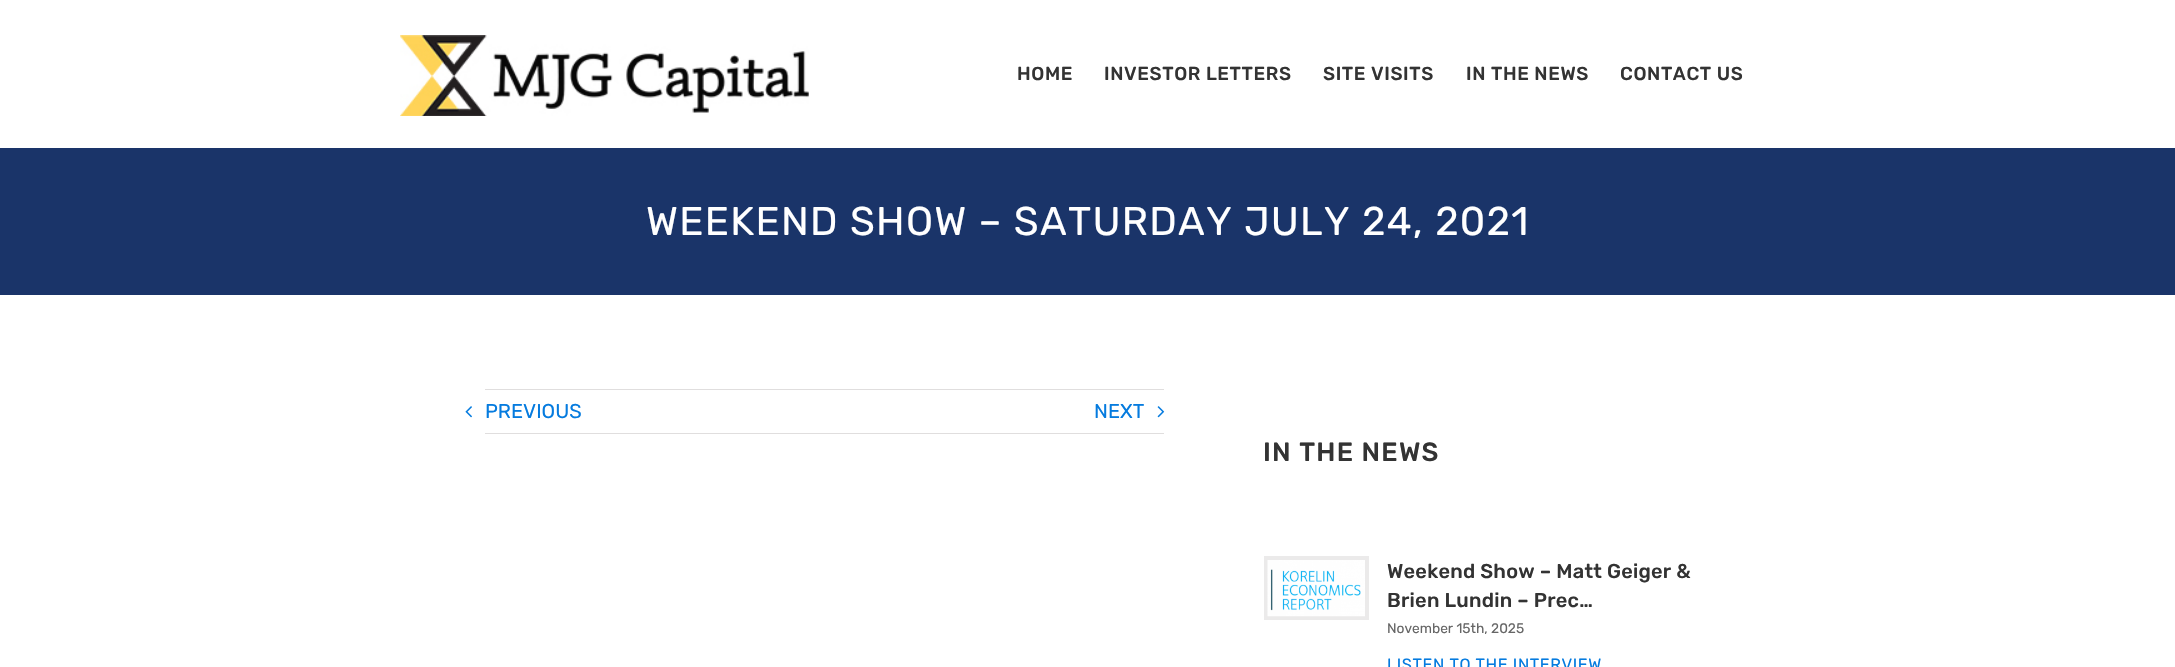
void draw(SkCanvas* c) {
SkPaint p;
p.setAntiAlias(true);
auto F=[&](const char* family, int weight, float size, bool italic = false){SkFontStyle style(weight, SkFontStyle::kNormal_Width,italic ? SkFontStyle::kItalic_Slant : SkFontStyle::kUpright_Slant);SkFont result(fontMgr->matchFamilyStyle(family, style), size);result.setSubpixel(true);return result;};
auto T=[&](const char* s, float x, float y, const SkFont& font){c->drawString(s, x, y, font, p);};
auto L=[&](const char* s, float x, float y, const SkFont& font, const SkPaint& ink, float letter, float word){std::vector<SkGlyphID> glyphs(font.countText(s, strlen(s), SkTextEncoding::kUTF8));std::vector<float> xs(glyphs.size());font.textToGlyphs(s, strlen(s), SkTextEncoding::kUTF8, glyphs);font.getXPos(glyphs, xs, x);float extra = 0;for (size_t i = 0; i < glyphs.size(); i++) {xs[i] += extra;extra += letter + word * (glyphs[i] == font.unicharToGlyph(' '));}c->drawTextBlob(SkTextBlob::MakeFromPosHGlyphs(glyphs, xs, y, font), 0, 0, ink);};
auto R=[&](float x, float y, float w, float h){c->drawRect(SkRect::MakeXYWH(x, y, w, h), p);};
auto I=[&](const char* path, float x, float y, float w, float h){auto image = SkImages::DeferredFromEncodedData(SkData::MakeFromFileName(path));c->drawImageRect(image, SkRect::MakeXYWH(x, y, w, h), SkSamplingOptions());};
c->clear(0xffffffff);
I("1.png",400,35,409,81);
auto f1 = F("Rubik",500,18.75);
p.setColor(0xff333333);
L("HOME",1017,80,f1,p,.6,0);
L("INVESTOR LETTERS",1104,80,f1,p,.6,0);
L("SITE VISITS",1323,80,f1,p,.6,0);
L("IN THE NEWS",1466,80,f1,p,.6,0);
L("CONTACT US",1620,80,f1,p,.6,0);
p.setColor(0xff1a3469);
R(0,148,2175,147);
auto f2 = F("Rubik",400,40);
p.setColor(0xffffffff);
L("WEEKEND SHOW – SATURDAY JULY 24, 2021",646,235,f2,p,1.25,0);
p.setColor(0xffe0dede);
R(485,389,679,1);
R(485,433,679,1);
I("2.png",465,406,7,12);
auto f3 = F("Rubik",400,20);
p.setColor(0xff057bdf);
T("PREVIOUS",485,418,f3);
T("NEXT",1094,418,f3);
I("3.png",1157,406,8,12);
auto f4 = F("Rubik",500,26.25);
p.setColor(0xff333333);
L("IN THE NEWS",1263,461,f4,p,1.25,0);
p.setStroke(true);
p.setStrokeWidth(4);
p.setColor(0xffebeaea);
c->drawRect(SkRect::MakeXYWH(1266,558,101,60),p);
I("4.png",1267,560,98,57);
auto f5 = F("Rubik",500,20);
p.setStroke(false);
p.setColor(0xff333333);
L("Weekend Show – Matt Geiger &",1387,578,f5,p,.25,0);
L("Brien Lundin – Prec…",1387,607,f5,p,.25,0);
auto f6 = F("Rubik",400,13.75);
p.setColor(0xff666666);
T("November 15th, 2025",1387,633,f6);
auto f7 = F("Rubik",400,16.25);
p.setColor(0xff057bdf);
L("LISTEN TO THE INTERVIEW",1387,670,f7,p,.6,0);
}
